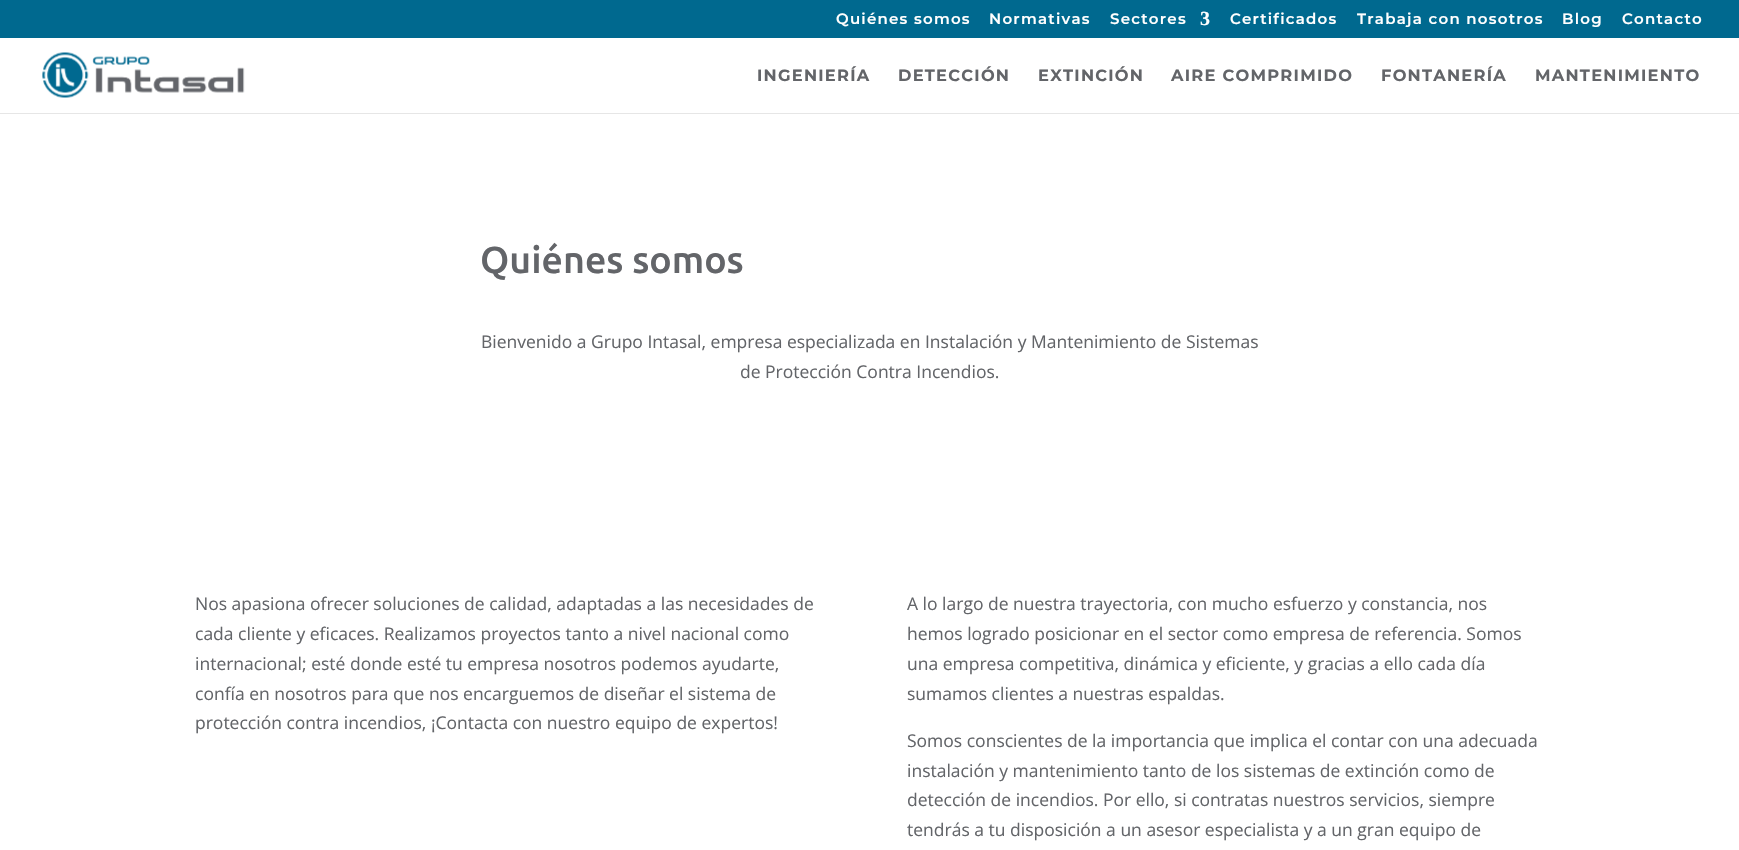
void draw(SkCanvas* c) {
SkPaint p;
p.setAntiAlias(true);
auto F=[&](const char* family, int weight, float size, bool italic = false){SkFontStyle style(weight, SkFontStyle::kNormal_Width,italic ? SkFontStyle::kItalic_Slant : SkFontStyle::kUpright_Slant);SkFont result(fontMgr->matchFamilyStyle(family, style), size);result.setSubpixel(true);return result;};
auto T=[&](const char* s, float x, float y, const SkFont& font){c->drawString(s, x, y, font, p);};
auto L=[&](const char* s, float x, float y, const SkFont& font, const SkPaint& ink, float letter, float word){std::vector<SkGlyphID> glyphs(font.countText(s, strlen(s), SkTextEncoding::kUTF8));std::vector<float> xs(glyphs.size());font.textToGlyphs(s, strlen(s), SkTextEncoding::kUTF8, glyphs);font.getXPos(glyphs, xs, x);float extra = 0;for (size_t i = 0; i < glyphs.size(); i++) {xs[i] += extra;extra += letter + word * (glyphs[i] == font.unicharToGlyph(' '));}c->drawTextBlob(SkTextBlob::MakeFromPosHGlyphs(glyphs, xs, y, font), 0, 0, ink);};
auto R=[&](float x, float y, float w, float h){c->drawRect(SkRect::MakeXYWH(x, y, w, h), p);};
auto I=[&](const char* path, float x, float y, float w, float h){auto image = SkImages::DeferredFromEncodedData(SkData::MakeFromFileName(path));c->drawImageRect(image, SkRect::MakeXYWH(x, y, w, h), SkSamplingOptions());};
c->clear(0xffffffff);
p.setColor(0xff00698f);
R(0,0,1739,38);
auto f1 = F("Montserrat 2",100,15);
p.setColor(0xffffffff);
L("Quiénes somos",836,24,f1,p,1.25,0);
L("Normativas",989,24,f1,p,1.25,0);
L("Sectores",1110,24,f1,p,1.25,0);
auto f2 = F("Liberation Serif",700,20);
L("3",1200,25,f2,p,1.25,0);
L("Certificados",1230,24,f1,p,1.25,0);
L("Trabaja con nosotros",1357,24,f1,p,1.25,0);
L("Blog",1562,24,f1,p,1.25,0);
L("Contacto",1622,24,f1,p,1.25,0);
p.setColor(0xffe6e6e6);
R(0,113,1739,1);
I("1.png",42,52,203,46);
auto f3 = F("Montserrat",100,16.25);
p.setColor(0xff636569);
L("INGENIERÍA",757,81,f3,p,1.25,0);
L("DETECCIÓN",898,81,f3,p,1.25,0);
L("EXTINCIÓN",1038,81,f3,p,1.25,0);
L("AIRE COMPRIMIDO",1171,81,f3,p,1.25,0);
L("FONTANERÍA",1381,81,f3,p,1.25,0);
L("MANTENIMIENTO",1535,81,f3,p,1.25,0);
auto f4 = F("Ubuntu",500,37.5);
T("Quiénes somos",480,273,f4);
auto f5 = F("Open Sans",400,17.5);
T("Bienvenido a Grupo Intasal, empresa especializada en Instalación y Mantenimiento de Sistemas",481,348,f5);
T("de Protección Contra Incendios.",740,378,f5);
T("Nos apasiona ofrecer soluciones de calidad, adaptadas a las necesidades de",195,610,f5);
T("cada cliente y eficaces. Realizamos proyectos tanto a nivel nacional como",195,640,f5);
T("internacional; esté donde esté tu empresa nosotros podemos ayudarte,",195,670,f5);
T("confía en nosotros para que nos encarguemos de diseñar el sistema de",195,700,f5);
T("protección contra incendios, ¡Contacta con nuestro equipo de expertos!",195,729,f5);
T("A lo largo de nuestra trayectoria, con mucho esfuerzo y constancia, nos",907,610,f5);
T("hemos logrado posicionar en el sector como empresa de referencia. Somos",907,640,f5);
T("una empresa competitiva, dinámica y eficiente, y gracias a ello cada día",907,670,f5);
T("sumamos clientes a nuestras espaldas.",907,700,f5);
T("Somos conscientes de la importancia que implica el contar con una adecuada",907,747,f5);
T("instalación y mantenimiento tanto de los sistemas de extinción como de",907,777,f5);
T("detección de incendios. Por ello, si contratas nuestros servicios, siempre",907,806,f5);
T("tendrás a tu disposición a un asesor especialista y a un gran equipo de",907,836,f5);
}
